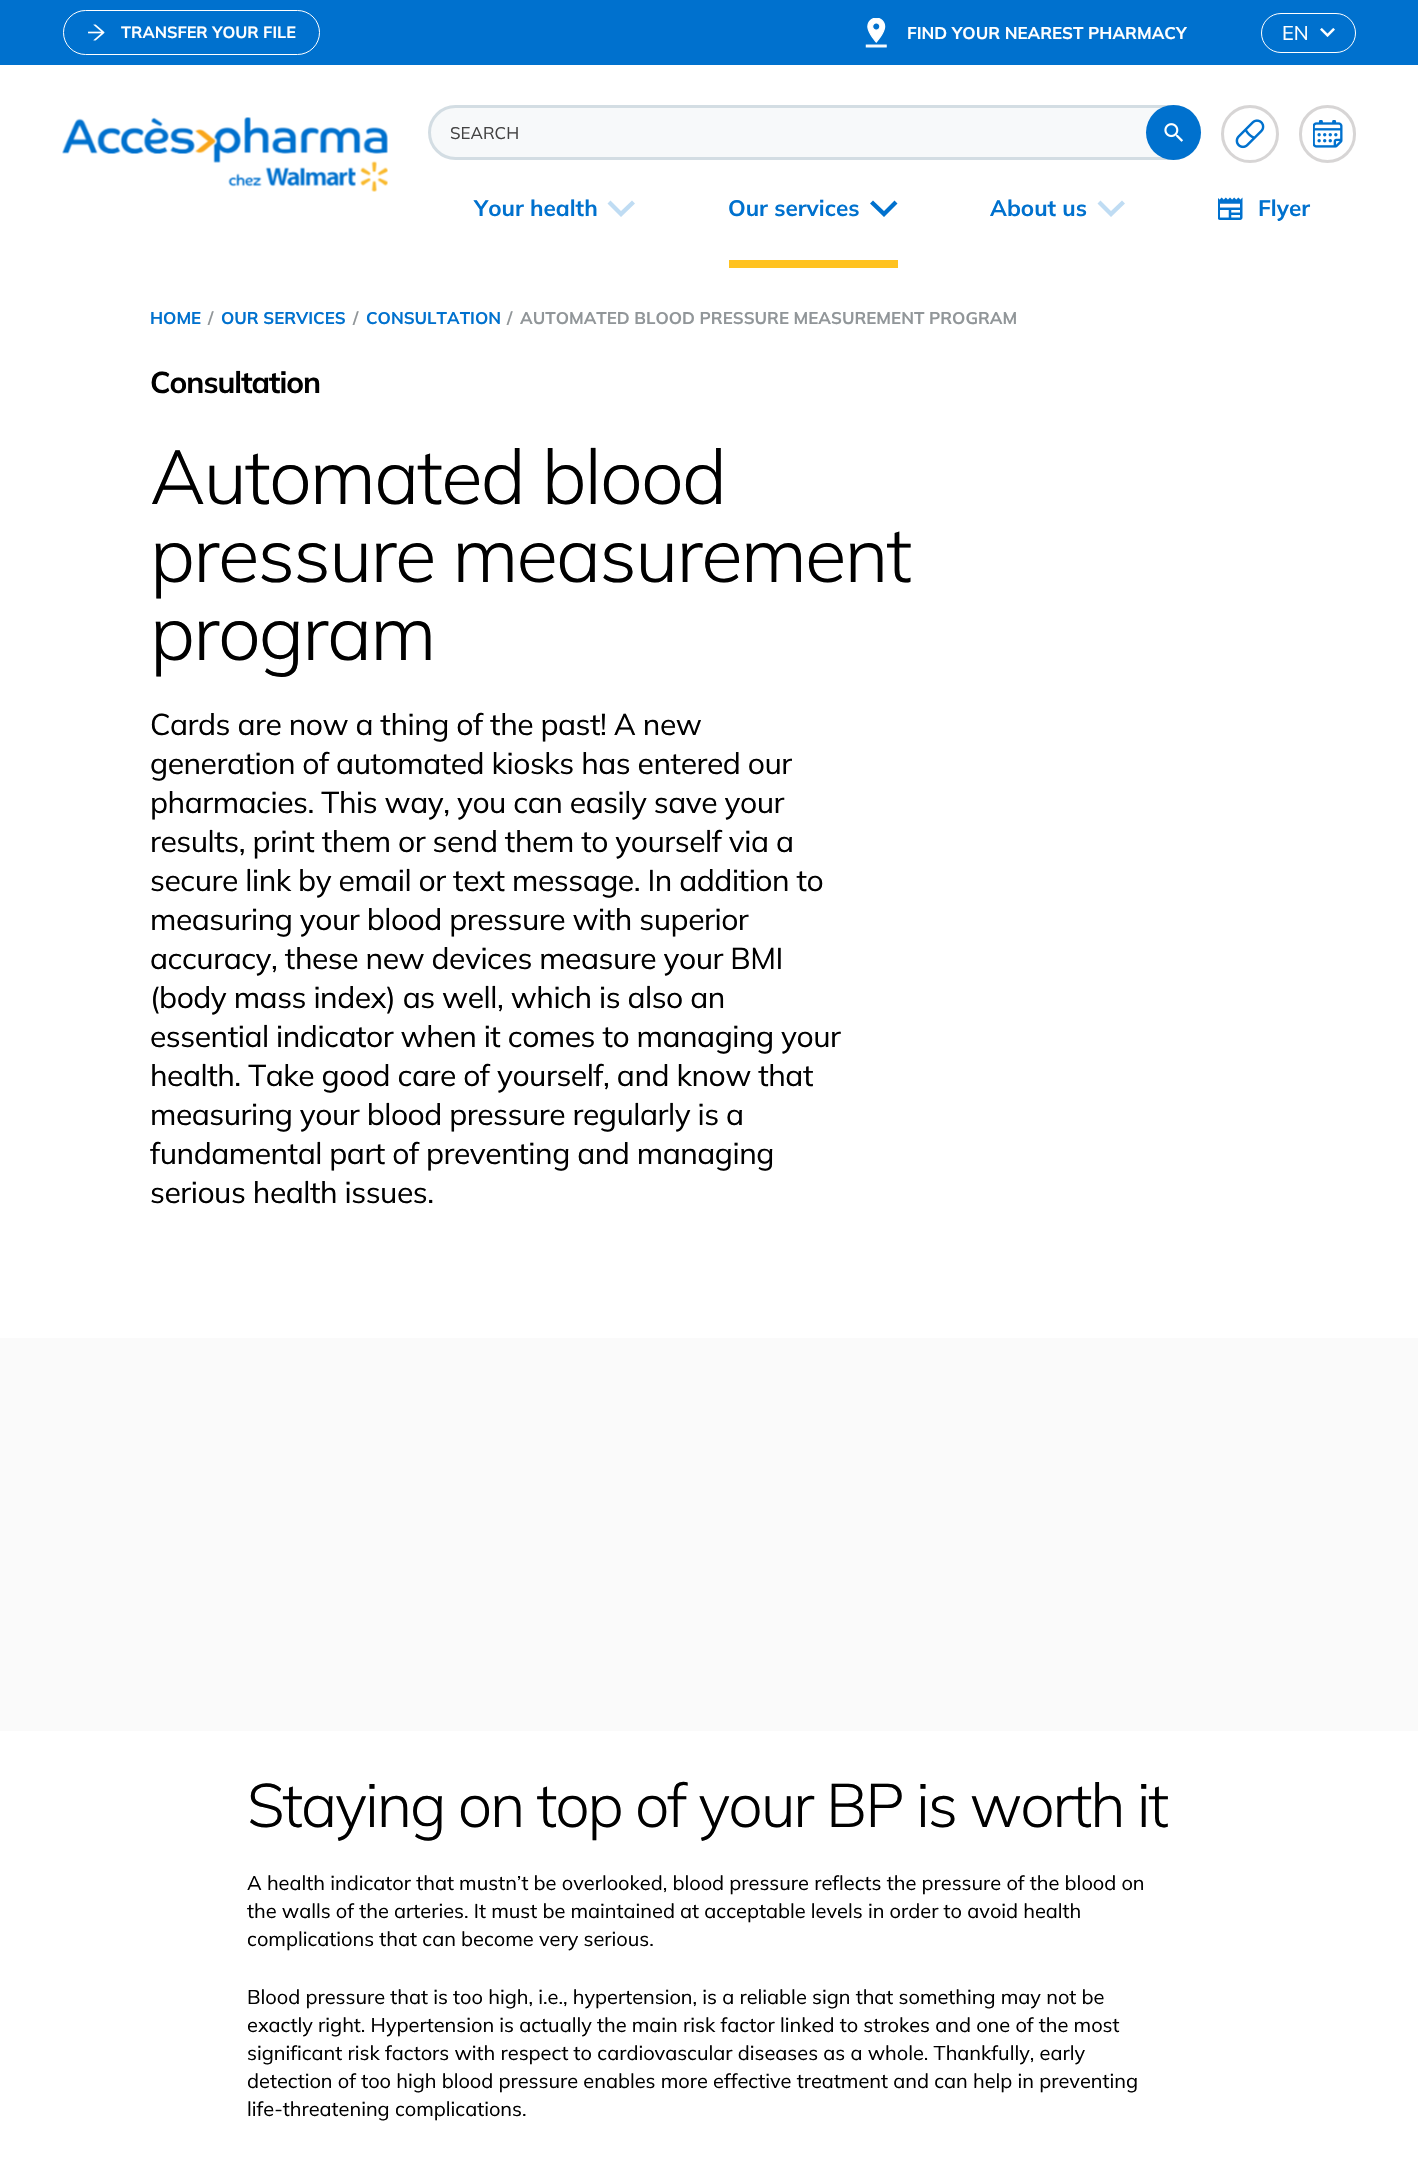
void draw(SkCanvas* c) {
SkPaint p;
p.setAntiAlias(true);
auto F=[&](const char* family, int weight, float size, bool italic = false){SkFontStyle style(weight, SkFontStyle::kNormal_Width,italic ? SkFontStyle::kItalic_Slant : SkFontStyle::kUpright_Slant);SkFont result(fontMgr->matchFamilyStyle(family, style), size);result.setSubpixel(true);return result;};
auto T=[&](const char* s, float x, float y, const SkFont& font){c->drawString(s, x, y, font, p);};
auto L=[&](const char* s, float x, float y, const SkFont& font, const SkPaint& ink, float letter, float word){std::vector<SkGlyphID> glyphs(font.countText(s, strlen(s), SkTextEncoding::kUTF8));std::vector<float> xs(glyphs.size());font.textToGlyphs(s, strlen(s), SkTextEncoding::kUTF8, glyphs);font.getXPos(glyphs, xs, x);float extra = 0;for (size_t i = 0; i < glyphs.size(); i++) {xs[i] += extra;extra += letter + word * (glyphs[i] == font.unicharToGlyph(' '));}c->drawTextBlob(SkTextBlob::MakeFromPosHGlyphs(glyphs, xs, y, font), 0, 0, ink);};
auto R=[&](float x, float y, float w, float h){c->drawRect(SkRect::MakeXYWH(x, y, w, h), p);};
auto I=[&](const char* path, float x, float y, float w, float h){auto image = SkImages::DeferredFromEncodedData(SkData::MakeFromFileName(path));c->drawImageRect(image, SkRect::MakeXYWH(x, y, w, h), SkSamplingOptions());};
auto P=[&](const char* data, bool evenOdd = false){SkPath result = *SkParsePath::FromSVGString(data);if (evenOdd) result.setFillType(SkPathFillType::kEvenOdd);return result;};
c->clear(0xffffffff);
p.setColor(0xff0071ce);
R(0,0,1418,65);
p.setStroke(true);
p.setStrokeWidth(1);
p.setColor(0xffffffff);
c->drawRoundRect(SkRect::MakeXYWH(63.5,10.5,256,44),22,22,p);
I("1.png",88,24,17,17);
auto f1 = F("Mulish",700,16.25);
p.setStroke(false);
T("TRANSFER YOUR FILE",121,38,f1);
I("2.png",865,18,22,30);
auto f2 = F("Mulish",700,16.9);
T("FIND YOUR NEAREST PHARMACY",907,39,f2);
p.setStroke(true);
c->drawRoundRect(SkRect::MakeXYWH(1261.5,13.5,94,39),19.5,19.5,p);
auto f3 = F("Mulish",400,20);
p.setStroke(false);
T("EN",1282,40,f3);
I("3.png",1320,28,15,9);
I("4.png",62,117,326,75);
p.setColor(0xfff7f9fa);
c->drawRoundRect(SkRect::MakeXYWH(429.5,106.5,770,52),26,26,p);
p.setStroke(true);
p.setStrokeWidth(3);
p.setColor(0xffd3dde3);
c->drawRoundRect(SkRect::MakeXYWH(429.5,106.5,770,52),26,26,p);
auto f4 = F("Mulish",400,16.9);
p.setStroke(false);
p.setColor(0xff434343);
T("SEARCH",450,139,f4);
p.setColor(0xff0071ce);
c->drawCircle(1173.5,132.5,27.5,p);
I("5.png",1164,123,19,19);
p.setStroke(true);
p.setColor(0xffd7d5d5);
c->drawCircle(1250,134,27.5,p);
I("6.png",1235,119,30,30);
c->drawRoundRect(SkRect::MakeXYWH(1300.5,106.5,54,55),27,27,p);
I("7.png",1313,120,30,28);
auto f5 = F("Mulish",700,22.5);
p.setStroke(false);
p.setColor(0xff0071ce);
T("Your health",474,216,f5);
p.setColor(0xffbfdcf3);
c->drawPath(P("M610.5 200.5l10.5 10.5l11-10.5l3 3l-14 13.5l-13.5-13.5z"),p);
p.setColor(0xff0071ce);
T("Our services",728,216,f5);
c->drawPath(P("M873 200.5l11 10.5l10.5-10.5l3 3l-13.5 13.5l-14-13.5z"),p);
p.setColor(0xffffc220);
R(729,260,169,8);
p.setColor(0xff0071ce);
T("About us",990,216,f5);
p.setColor(0xffbfdcf3);
c->drawPath(P("M1100.5 200.5l10.5 10.5l11-10.5l3 3l-14 13.5l-13.5-13.5z"),p);
I("8.png",1218,197,25,23);
p.setColor(0xff0071ce);
T("Flyer",1258,216,f5);
T("HOME",150,324,f2);
p.setColor(0xff919699);
T("/",208,324,f2);
p.setColor(0xff0071ce);
T("OUR SERVICES",221,324,f2);
p.setColor(0xff919699);
T("/",353,324,f2);
p.setColor(0xff0071ce);
T("CONSULTATION",366,324,f2);
p.setColor(0xff919699);
T("/",507,324,f2);
T("AUTOMATED BLOOD PRESSURE MEASUREMENT PROGRAM",520,324,f2);
auto f6 = F("Mulish",700,30);
p.setColor(0xff000000);
L("Consultation",150,393,f6,p,-1,0);
auto f7 = F("Mulish",300,76.25);
L("Automated blood",150,504,f7,p,-1.9,0);
L("pressure measurement",150,582,f7,p,-1.9,0);
L("program",150,660,f7,p,-1.9,0);
auto f8 = F("Mulish",400,30);
L("Cards are now a thing of the past! A new",150,735,f8,p,-.45,0);
L("generation of automated kiosks has entered our",150,774,f8,p,-.45,0);
L("pharmacies. This way, you can easily save your",150,813,f8,p,-.45,0);
L("results, print them or send them to yourself via a",150,852,f8,p,-.45,0);
L("secure link by email or text message. In addition to",150,891,f8,p,-.45,0);
L("measuring your blood pressure with superior",150,930,f8,p,-.45,0);
L("accuracy, these new devices measure your BMI",150,969,f8,p,-.45,0);
L("(body mass index) as well, which is also an",150,1008,f8,p,-.45,0);
L("essential indicator when it comes to managing your",150,1047,f8,p,-.45,0);
L("health. Take good care of yourself, and know that",150,1086,f8,p,-.45,0);
L("measuring your blood pressure regularly is a",150,1125,f8,p,-.45,0);
L("fundamental part of preventing and managing",150,1164,f8,p,-.45,0);
L("serious health issues.",150,1203,f8,p,-.45,0);
p.setColor(0xfffafafa);
R(0,1338,1418,393);
auto f9 = F("Mulish",300,61.25);
p.setColor(0xff000000);
L("Staying on top of your BP is worth it",247,1827,f9,p,-2.15,0);
T("A health indicator that mustn’t be overlooked, blood pressure reflects the pressure of the blood on",247,1890,f3);
T("the walls of the arteries. It must be maintained at acceptable levels in order to avoid health",247,1918,f3);
T("complications that can become very serious.",247,1946,f3);
T("Blood pressure that is too high, i.e., hypertension, is a reliable sign that something may not be",247,2004,f3);
T("exactly right. Hypertension is actually the main risk factor linked to strokes and one of the most",247,2032,f3);
T("significant risk factors with respect to cardiovascular diseases as a whole. Thankfully, early",247,2060,f3);
T("detection of too high blood pressure enables more effective treatment and can help in preventing",247,2088,f3);
T("life-threatening complications.",247,2116,f3);
}
